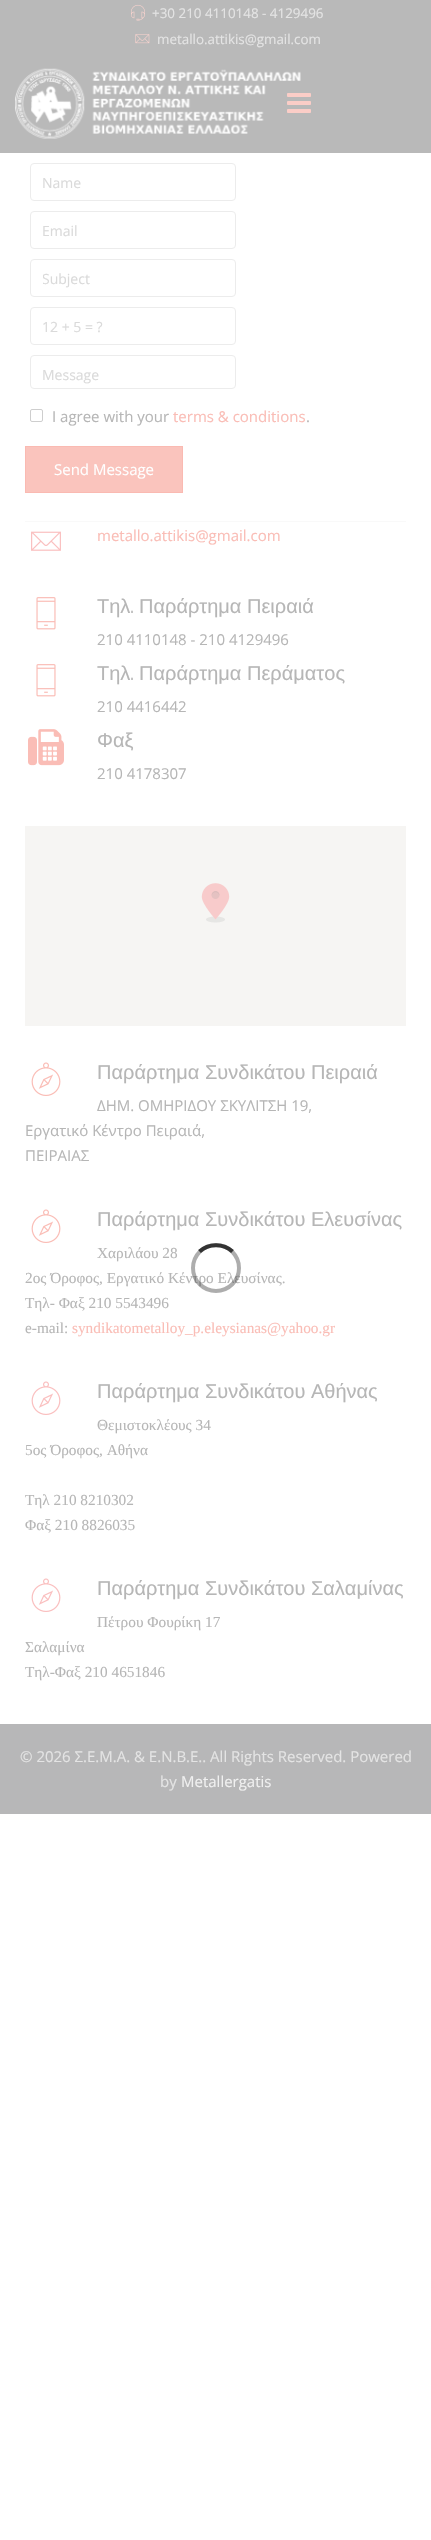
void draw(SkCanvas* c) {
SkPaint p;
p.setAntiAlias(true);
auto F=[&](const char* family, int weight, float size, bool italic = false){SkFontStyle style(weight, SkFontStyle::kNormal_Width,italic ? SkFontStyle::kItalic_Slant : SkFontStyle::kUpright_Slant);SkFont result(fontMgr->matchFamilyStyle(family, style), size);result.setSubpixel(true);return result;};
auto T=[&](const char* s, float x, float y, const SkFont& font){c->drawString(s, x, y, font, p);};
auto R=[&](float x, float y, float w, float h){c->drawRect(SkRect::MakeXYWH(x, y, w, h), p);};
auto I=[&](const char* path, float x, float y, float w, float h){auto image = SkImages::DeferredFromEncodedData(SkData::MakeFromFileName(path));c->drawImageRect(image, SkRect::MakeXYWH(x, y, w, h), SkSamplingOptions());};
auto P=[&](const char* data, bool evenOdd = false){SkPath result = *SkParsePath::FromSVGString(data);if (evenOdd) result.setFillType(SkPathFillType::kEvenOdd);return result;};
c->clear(0xffffffff);
p.setColor(0xffb9b9b9);
R(0,0,431,153);
I("1.png",131,4,14,17);
auto f1 = F("Open Sans",400,13.4);
p.setColor(0xffe4e4e4);
T("+30 210 4110148 - 4129496",152,18,f1);
I("2.png",135,34,15,10);
T("metallo.attikis@gmail.com",157,44,f1);
I("3.png",15,68,286,71);
I("4.png",287,93,24,20);
p.setStroke(true);
p.setStrokeWidth(1);
p.setColor(0xffececec);
c->drawRoundRect(SkRect::MakeXYWH(30.5,163.5,205,37),3.5,3.5,p);
auto f2 = F("Open Sans",400,14);
p.setStroke(false);
p.setColor(0xffdadada);
T("Name",42,188,f2);
p.setStroke(true);
p.setColor(0xffececec);
c->drawRoundRect(SkRect::MakeXYWH(30.5,211.5,205,37),3.5,3.5,p);
p.setStroke(false);
p.setColor(0xffdadada);
T("Email",42,236,f2);
p.setStroke(true);
p.setColor(0xffececec);
c->drawRoundRect(SkRect::MakeXYWH(30.5,259.5,205,37),3.5,3.5,p);
c->save();
c->clipRect(SkRect::MakeXYWH(43,269,180,19));
p.setStroke(false);
p.setColor(0xffdadada);
T("Subject",42,284,f2);
c->restore();
p.setStroke(true);
p.setColor(0xffececec);
c->drawRoundRect(SkRect::MakeXYWH(30.5,307.5,205,37),3.5,3.5,p);
p.setStroke(false);
p.setColor(0xffdadada);
T("12 + 5 = ?",42,332,f2);
p.setStroke(true);
p.setColor(0xffececec);
c->drawRoundRect(SkRect::MakeXYWH(30.5,355.5,205,33),3.5,3.5,p);
p.setStroke(false);
p.setColor(0xffdadada);
T("Message",42,380,f2);
p.setStroke(true);
p.setColor(0xffcecece);
c->drawRoundRect(SkRect::MakeXYWH(30.5,409.5,12,12),1.5,1.5,p);
auto f3 = F("Open Sans",400,15);
p.setStroke(false);
p.setColor(0xffb6b6b6);
T("I agree with your",52,422,f3);
p.setColor(0xfffabdb6);
T("terms & conditions",173,422,f3);
p.setColor(0xffb6b6b6);
T(".",306,422,f3);
p.setColor(0xfffac4bd);
c->drawRect(SkRect::MakeXYWH(25.5,446.5,157,46),p);
p.setStroke(true);
p.setColor(0xfffabab2);
c->drawRect(SkRect::MakeXYWH(25.5,446.5,157,46),p);
p.setStroke(false);
p.setColor(0xffffffff);
T("Send Message",54,475,f3);
p.setColor(0xfff9f9f9);
R(25,521,381,1);
I("5.png",31,531,30,20);
p.setColor(0xfffabdb6);
T("metallo.attikis@gmail.com",97,541,f3);
I("6.png",36,597,20,33);
auto f4 = F("Liberation Sans",400,20);
p.setColor(0xffb6b6b6);
T("Τηλ",97,613,f4);
auto f5 = F("Raleway",500,20);
T(".",130,613,f5);
T("Παράρτημα Πειραιά",139,613,f4);
T("210 4110148 - 210 4129496",97,645,f3);
I("6.png",36,664,20,33);
T("Τηλ",97,680,f4);
T(".",130,680,f5);
T("Παράρτημα Περάματος",139,680,f4);
T("210 4416442",97,712,f3);
I("7.png",28,729,36,37);
T("Φαξ",97,747,f4);
T("210 4178307",97,779,f3);
p.setColor(0xfff6f5f3);
R(25,826,381,200);
I("8.png",201,883,29,40);
I("9.png",31,1062,30,34);
p.setColor(0xffb6b6b6);
T("Παράρτημα Συνδικάτου Πειραιά",97,1079,f4);
T("ΔΗΜ. ΟΜΗΡΙΔΟΥ ΣΚΥΛΙΤΣΗ 19,",97,1111,f3);
T("Εργατικό Κέντρο Πειραιά,",25,1136,f3);
T("ΠΕΙΡΑΙΑΣ",25,1161,f3);
I("9.png",31,1209,30,34);
T("Παράρτημα Συνδικάτου Ελευσίνας",97,1226,f4);
auto f6 = F("Liberation Serif",400,15.3);
T("Χαριλάου 28",97,1258,f6);
T("2ος Όροφος, Εργατικό Κέντρο Ελευσίνας.",25,1283,f6);
T("Τηλ- Φαξ 210 5543496",25,1308,f6);
T("e-mail:",25,1333,f6);
p.setColor(0xfffabdb6);
T("syndikatometalloy_p.eleysianas@yahoo.gr",72,1333,f6);
I("10.png",31,1381,30,34);
p.setColor(0xffb6b6b6);
T("Παράρτημα Συνδικάτου Αθήνας",97,1398,f4);
T("Θεμιστοκλέους 34",97,1430,f6);
T("5ος Όροφος, Αθήνα",25,1455,f6);
T("Τηλ 210 8210302",25,1505,f6);
T("Φαξ 210 8826035",25,1530,f6);
I("10.png",31,1578,30,34);
T("Παράρτημα Συνδικάτου Σαλαμίνας",97,1595,f4);
T("Πέτρου Φουρίκη 17",97,1627,f6);
T("Σαλαμίνα",25,1652,f6);
T("Τηλ-Φαξ 210 4651846",25,1677,f6);
p.setStroke(true);
p.setStrokeWidth(4);
p.setColor(0x66333333);
c->drawCircle(216,1268,23,p);
p.setColor(0xff333333);
c->drawPath(P("M199.5 1251.5c9-8.5 24-8.5 33 0"),p);
p.setStroke(false);
p.setColor(0xffb7b7b8);
R(0,1724,431,90);
p.setColor(0xffe4e4e4);
T("© 2026 Σ.Ε.Μ.Α. & Ε.Ν.Β.Ε.. All Rights Reserved. Powered",20,1762,f3);
T("by",160,1787,f3);
p.setColor(0xfff0f0f0);
T("Metallergatis",181,1787,f3);
}
